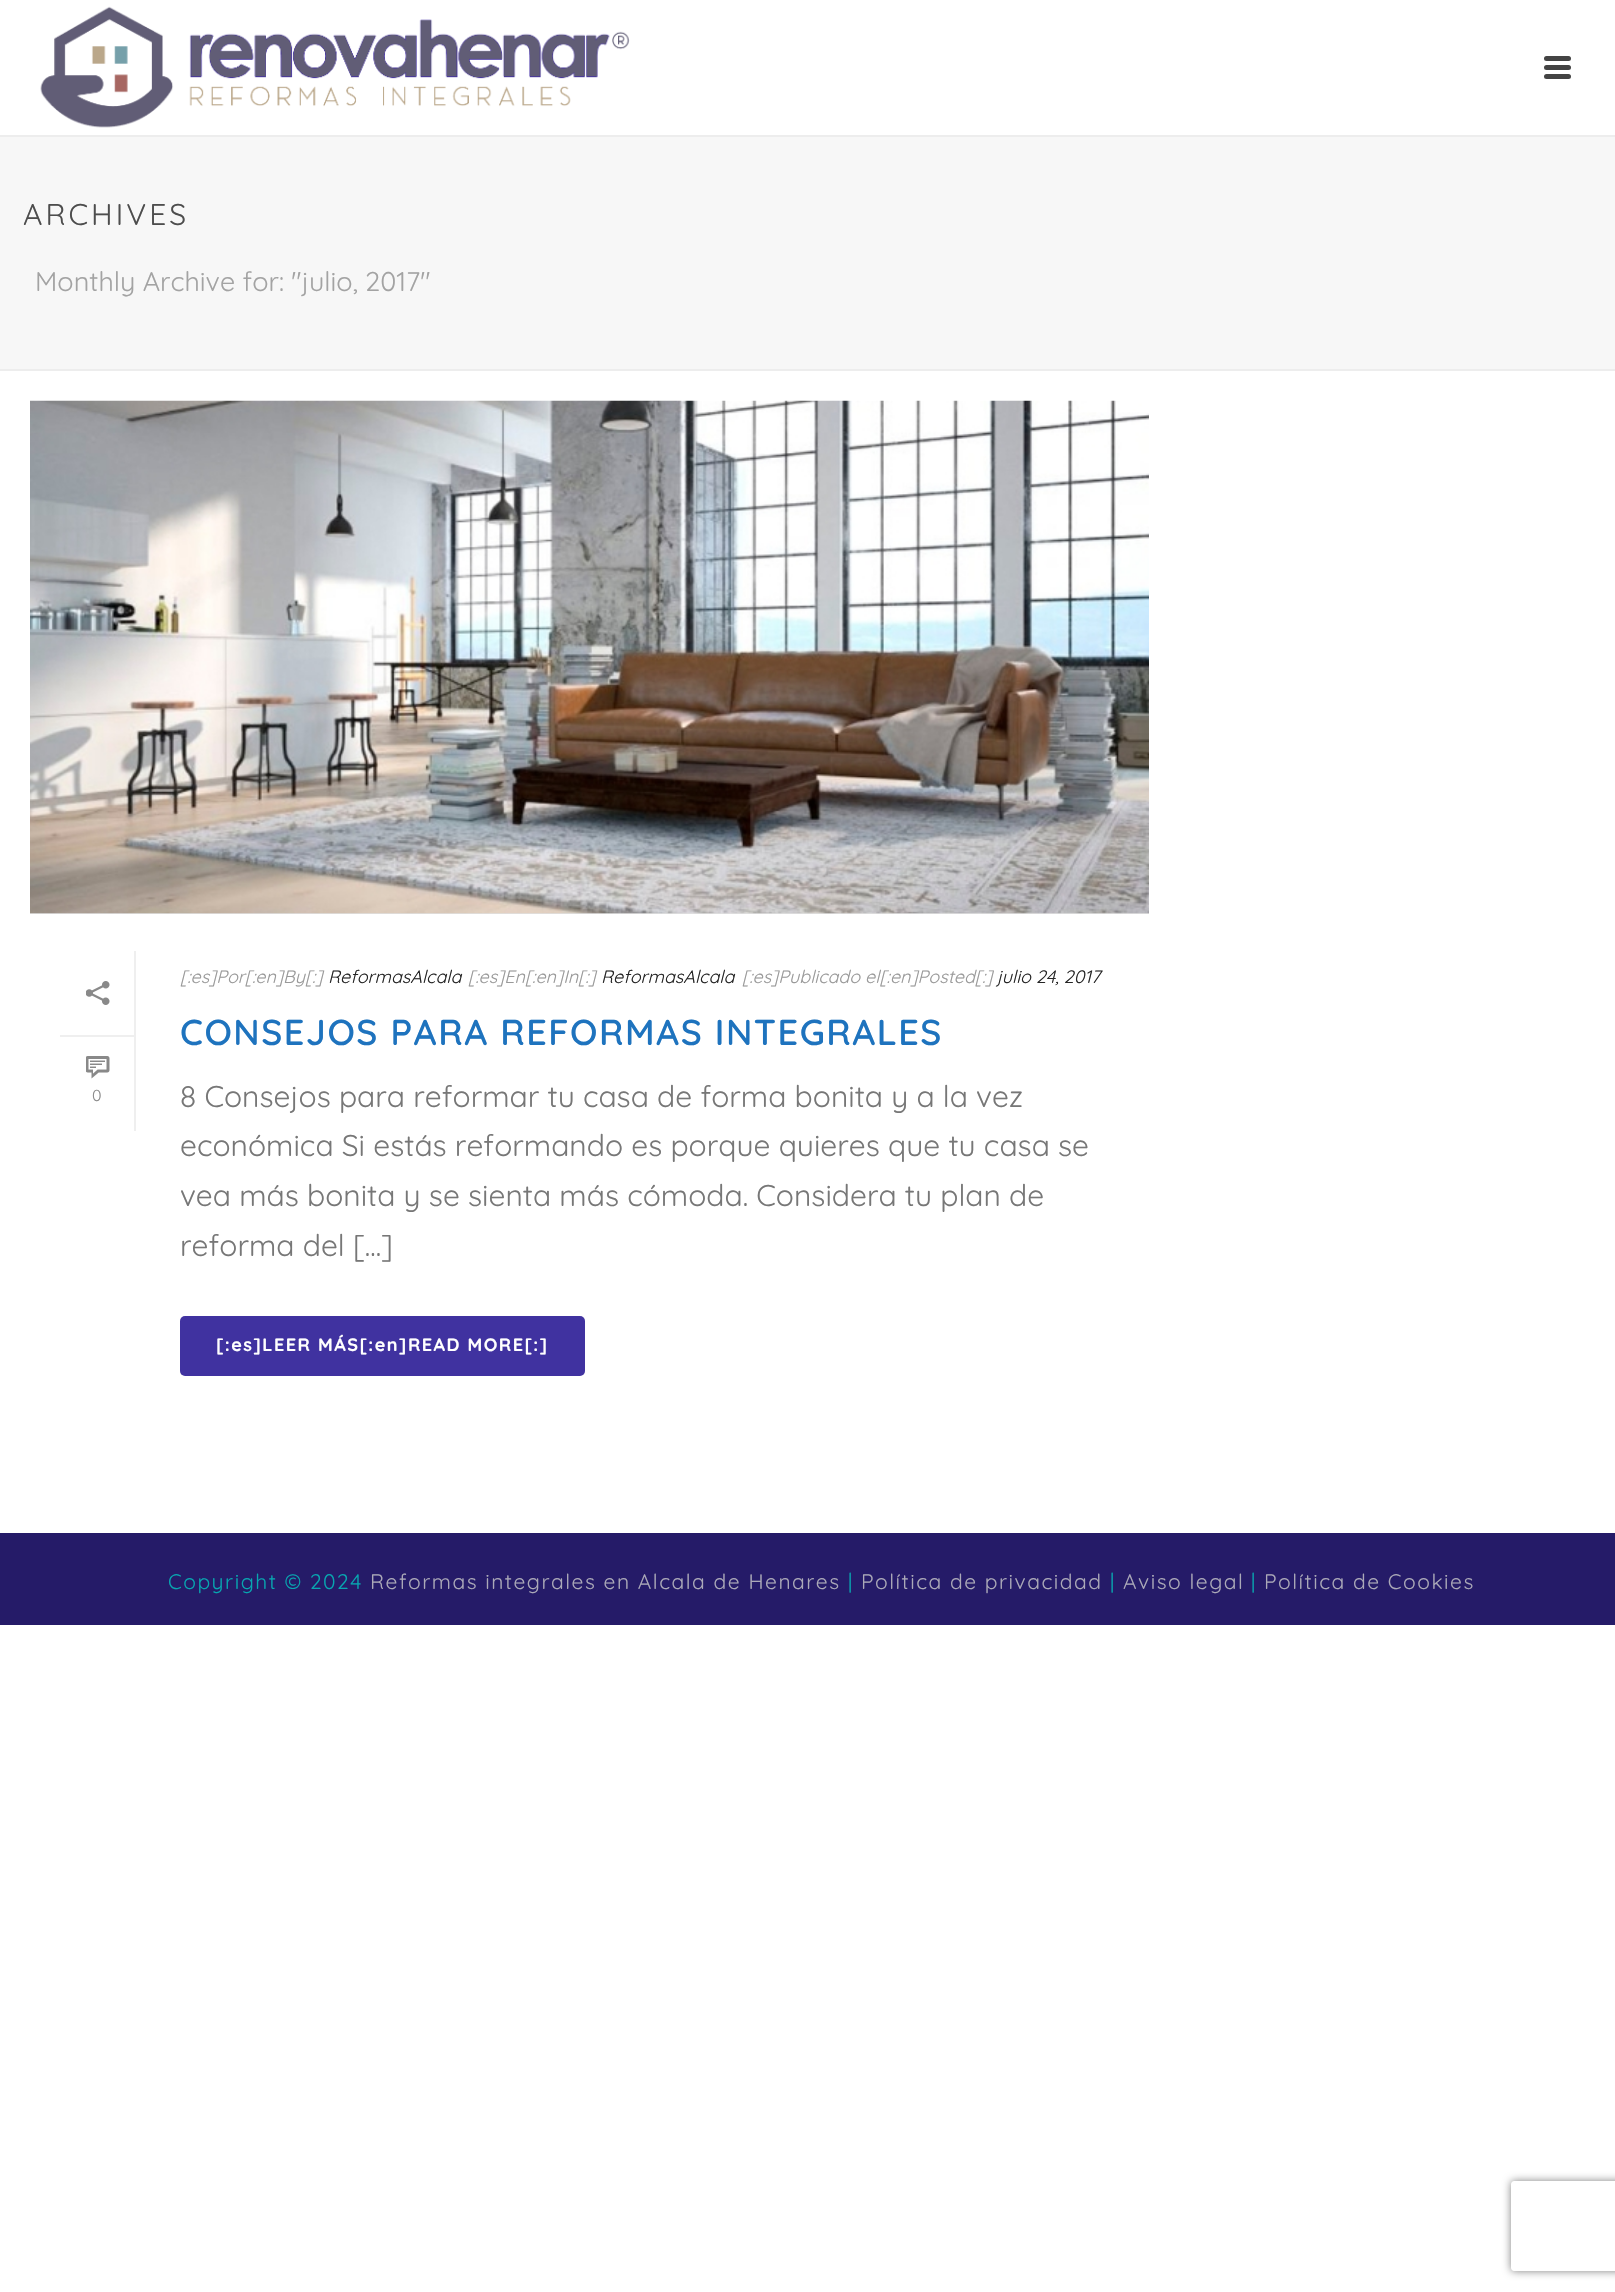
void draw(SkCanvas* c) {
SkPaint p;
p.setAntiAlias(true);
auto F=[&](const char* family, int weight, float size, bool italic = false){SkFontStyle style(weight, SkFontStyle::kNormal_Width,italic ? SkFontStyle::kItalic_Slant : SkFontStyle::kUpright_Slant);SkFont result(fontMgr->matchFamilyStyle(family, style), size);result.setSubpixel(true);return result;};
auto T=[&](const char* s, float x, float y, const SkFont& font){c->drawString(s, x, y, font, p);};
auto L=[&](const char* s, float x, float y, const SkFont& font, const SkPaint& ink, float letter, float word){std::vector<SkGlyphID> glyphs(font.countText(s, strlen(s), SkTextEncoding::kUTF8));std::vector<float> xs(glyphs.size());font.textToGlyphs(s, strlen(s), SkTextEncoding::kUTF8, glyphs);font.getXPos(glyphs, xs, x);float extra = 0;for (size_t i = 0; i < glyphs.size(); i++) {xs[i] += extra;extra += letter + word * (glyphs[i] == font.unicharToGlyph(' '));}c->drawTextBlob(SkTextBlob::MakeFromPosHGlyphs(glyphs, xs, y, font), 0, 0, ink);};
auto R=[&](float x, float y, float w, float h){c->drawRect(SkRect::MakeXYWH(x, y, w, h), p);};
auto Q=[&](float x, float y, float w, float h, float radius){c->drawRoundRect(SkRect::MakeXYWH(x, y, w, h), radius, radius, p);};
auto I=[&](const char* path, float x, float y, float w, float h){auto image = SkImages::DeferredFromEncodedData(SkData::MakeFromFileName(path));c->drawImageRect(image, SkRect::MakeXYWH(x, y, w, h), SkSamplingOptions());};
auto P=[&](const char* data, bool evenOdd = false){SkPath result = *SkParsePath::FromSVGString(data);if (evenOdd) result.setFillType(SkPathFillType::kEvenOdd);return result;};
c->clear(0xffffffff);
p.setColor(0xfff7f7f7);
R(0,137,1615,232);
p.setColor(0xffededed);
R(0,369,1615,2);
R(0,135,1615,2);
I("1.png",40,6,590,122);
p.setColor(0xff444444);
Q(1544,56,27,5,2.5);
Q(1544,65,27,5,2.5);
Q(1544,74,27,5,2.5);
auto f1 = F("Quicksand",400,30);
p.setColor(0xff4d4d4d);
L("ARCHIVES",23,225,f1,p,3,0);
auto f2 = F("Quicksand",400,27);
p.setColor(0xffa3a3a3);
T("Monthly Archive for: \"julio, 2017\"",35,291,f2);
p.setColor(0xffe0e0e0);
R(30,913,1119,1);
I("2.png",30,400,1119,514);
p.setColor(0xffefefef);
R(134,951,2,180);
R(60,1035,74,2);
I("3.png",86,981,24,24);
I("4.png",86,1056,24,23);
auto f3 = F("Quicksand",400,16);
p.setColor(0xff898989);
T("0",92,1101,f3);
auto f4 = F("Quicksand",400,18,true);
p.setColor(0xff999999);
T("[:es]Por[:en]By[:]",180,983,f4);
p.setColor(0xff252525);
T("ReformasAlcala",328,983,f4);
p.setColor(0xff999999);
T("[:es]En[:en]In[:]",468,983,f4);
p.setColor(0xff252525);
T("ReformasAlcala",601,983,f4);
p.setColor(0xff999999);
T("[:es]Publicado el[:en]Posted[:]",742,983,f4);
p.setColor(0xff252525);
T("julio 24, 2017",997,983,f4);
auto f5 = F("Quicksand",600,36);
p.setColor(0xff1e73be);
L("CONSEJOS PARA REFORMAS INTEGRALES",180,1045,f5,p,1.5,0);
p.setColor(0xff777777);
T("8 Consejos para reformar tu casa de forma bonita y a la vez",180,1107,f1);
T("económica Si estás reformando es porque quieres que tu casa se",180,1156,f1);
T("vea más bonita y se sienta más cómoda. Considera tu plan de",180,1206,f1);
T("reforma del [...]",180,1256,f1);
p.setColor(0xff4032a0);
Q(180,1316,405,60,5);
auto f6 = F("Quicksand",700,18);
p.setColor(0xffffffff);
L("[:es]LEER MÁS[:en]READ MORE[:]",216,1351,f6,p,1.5,0);
p.setColor(0xff251b68);
R(0,1533,1615,92);
auto f7 = F("Quicksand",400,21);
p.setColor(0xff07a6b0);
L("Copyright © 2024",168,1589,f7,p,1.5,0);
p.setColor(0xffaba9b8);
L("Reformas integrales en Alcala de Henares",370,1589,f7,p,1.5,0);
p.setColor(0xff07a6b0);
L("|",848,1589,f7,p,1.5,0);
p.setColor(0xffaba9b8);
L("Política de privacidad",861,1589,f7,p,1.5,0);
p.setColor(0xff07a6b0);
L("|",1110,1589,f7,p,1.5,0);
p.setColor(0xffaba9b8);
L("Aviso legal",1123,1589,f7,p,1.5,0);
p.setColor(0xff07a6b0);
L("|",1251,1589,f7,p,1.5,0);
p.setColor(0xffaba9b8);
L("Política de Cookies",1264,1589,f7,p,1.5,0);
c->save();
c->clipPath(P("M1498 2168h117v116h-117zm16 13h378c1.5 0 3 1.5 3 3v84c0 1.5-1.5 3-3 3h-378c-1.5 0-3-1.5-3-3v-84c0-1.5 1.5-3 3-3z",true),true);
p.setColor(0xff808080);
p.setMaskFilter(SkMaskFilter::MakeBlur(kNormal_SkBlurStyle, 4));
c->drawRoundRect(SkRect::MakeXYWH(1511,2181,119,90),3,3,p);
p.setMaskFilter(nullptr);
c->restore();
}
